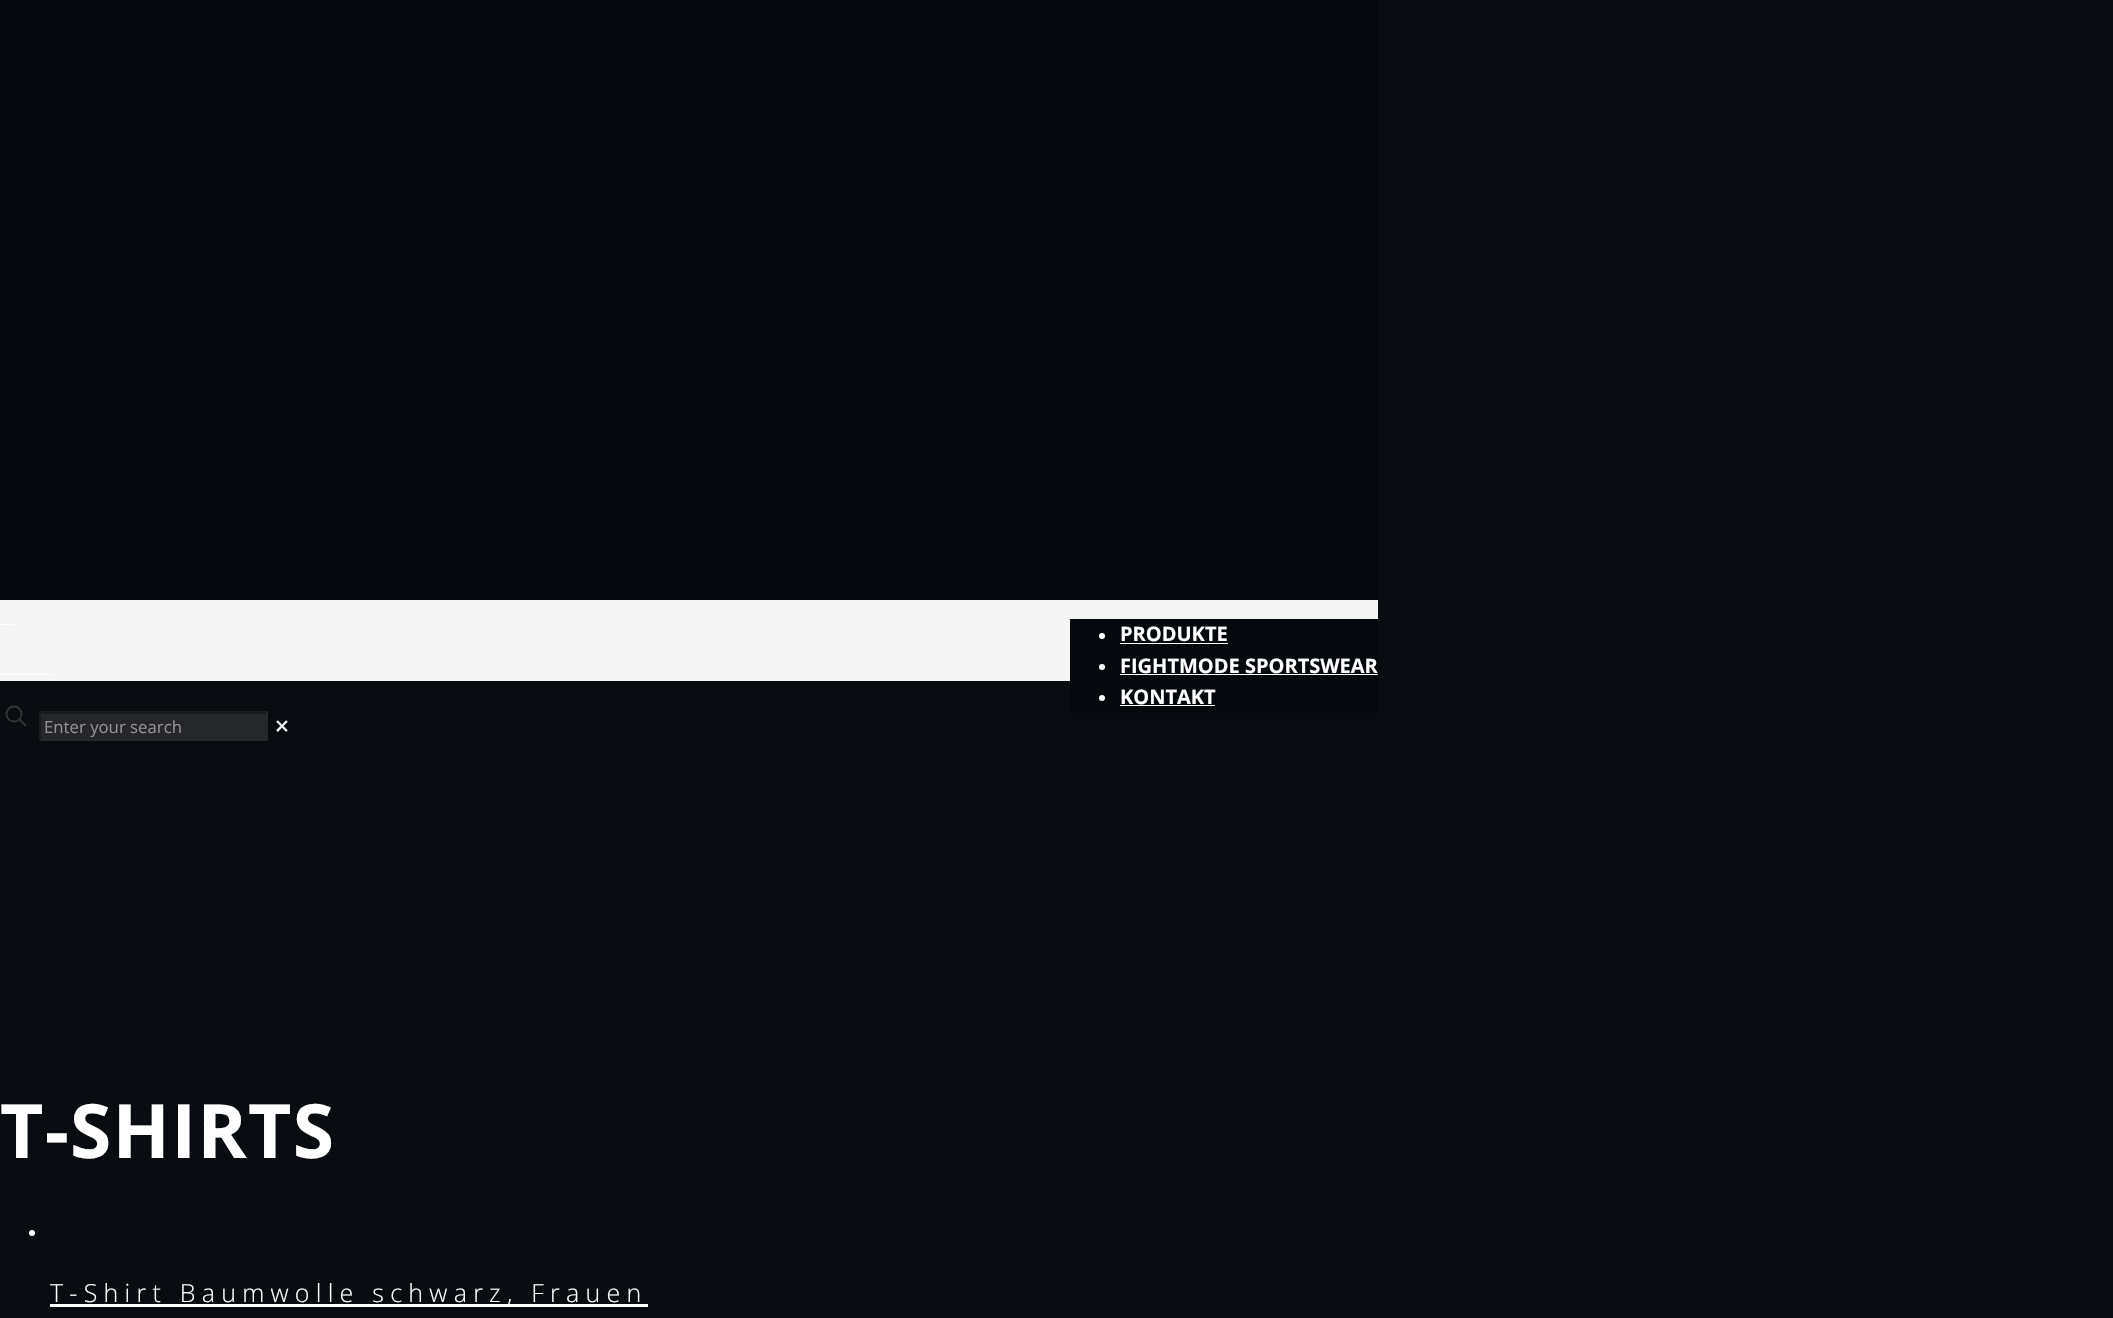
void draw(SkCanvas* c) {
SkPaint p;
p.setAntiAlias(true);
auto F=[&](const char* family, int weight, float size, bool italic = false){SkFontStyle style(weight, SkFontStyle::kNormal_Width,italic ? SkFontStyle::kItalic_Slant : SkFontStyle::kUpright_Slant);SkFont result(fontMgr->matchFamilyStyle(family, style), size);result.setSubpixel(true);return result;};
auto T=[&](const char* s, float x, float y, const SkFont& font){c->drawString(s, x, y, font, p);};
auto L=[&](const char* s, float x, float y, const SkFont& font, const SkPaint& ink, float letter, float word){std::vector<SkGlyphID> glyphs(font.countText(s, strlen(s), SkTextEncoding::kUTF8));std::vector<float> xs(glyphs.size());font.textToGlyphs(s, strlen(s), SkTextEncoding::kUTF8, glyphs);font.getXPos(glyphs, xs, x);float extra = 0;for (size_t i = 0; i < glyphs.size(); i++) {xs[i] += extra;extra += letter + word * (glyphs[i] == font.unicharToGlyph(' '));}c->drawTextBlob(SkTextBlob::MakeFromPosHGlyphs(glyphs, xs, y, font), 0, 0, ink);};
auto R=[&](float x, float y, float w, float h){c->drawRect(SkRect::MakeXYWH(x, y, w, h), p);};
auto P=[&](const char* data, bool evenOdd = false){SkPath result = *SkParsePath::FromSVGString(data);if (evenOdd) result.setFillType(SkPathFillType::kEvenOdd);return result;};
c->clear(0xff080b10);
p.setColor(0xfff5f5f5);
R(0,600,1378,81);
p.setColor(0xffffffff);
R(0,624,13,1);
R(0,674,53,1);
p.setColor(0xff05080d);
R(0,0,1378,600);
R(1070,619,308,94);
p.setColor(0xffffffff);
c->drawCircle(1102,636,3,p);
auto f1 = F("Open Sans",700,20);
T("PRODUKTE",1120,641,f1);
R(1120,643,108,1);
c->drawCircle(1102,667,3,p);
T("FIGHTMODE SPORTSWEAR",1120,673,f1);
R(1120,674,258,1);
c->drawCircle(1102,698,3,p);
T("KONTAKT",1120,704,f1);
R(1120,705,95,1);
p.setStroke(true);
p.setStrokeWidth(1.9);
p.setColor(0xff333333);
c->drawCircle(14,714,7.5,p);
c->drawPath(P("M19.5 719.5l6.5 6.5"),p);
p.setStroke(false);
p.setColor(0xff25272b);
R(39,711,229,30);
p.setColor(0xff191a1d);
c->drawPath(P("M39 711h229l-3 3h-224z"),p);
p.setColor(0xff25272b);
c->drawPath(P("M267.5 711v30l-2.5-2v-25z"),p);
p.setColor(0xff191a1d);
c->drawPath(P("M39 741v-30l2 3v25z"),p);
auto f2 = F("Open Sans",400,16.75);
p.setColor(0xff929292);
T("Enter your search",44,733,f2);
auto f3 = F("DejaVu Sans",400,19);
p.setColor(0xffffffff);
L("✕",274,733,f3,p,1.25,0);
auto f4 = F("Open Sans",700,75);
L("T-SHIRTS",0,1158,f4,p,1.25,0);
c->drawCircle(32,1233,3,p);
R(50,1304,598,3);
auto f5 = F("Open Sans",300,25);
L("T-Shirt Baumwolle schwarz, Frauen",50,1302,f5,p,6.25,0);
}
